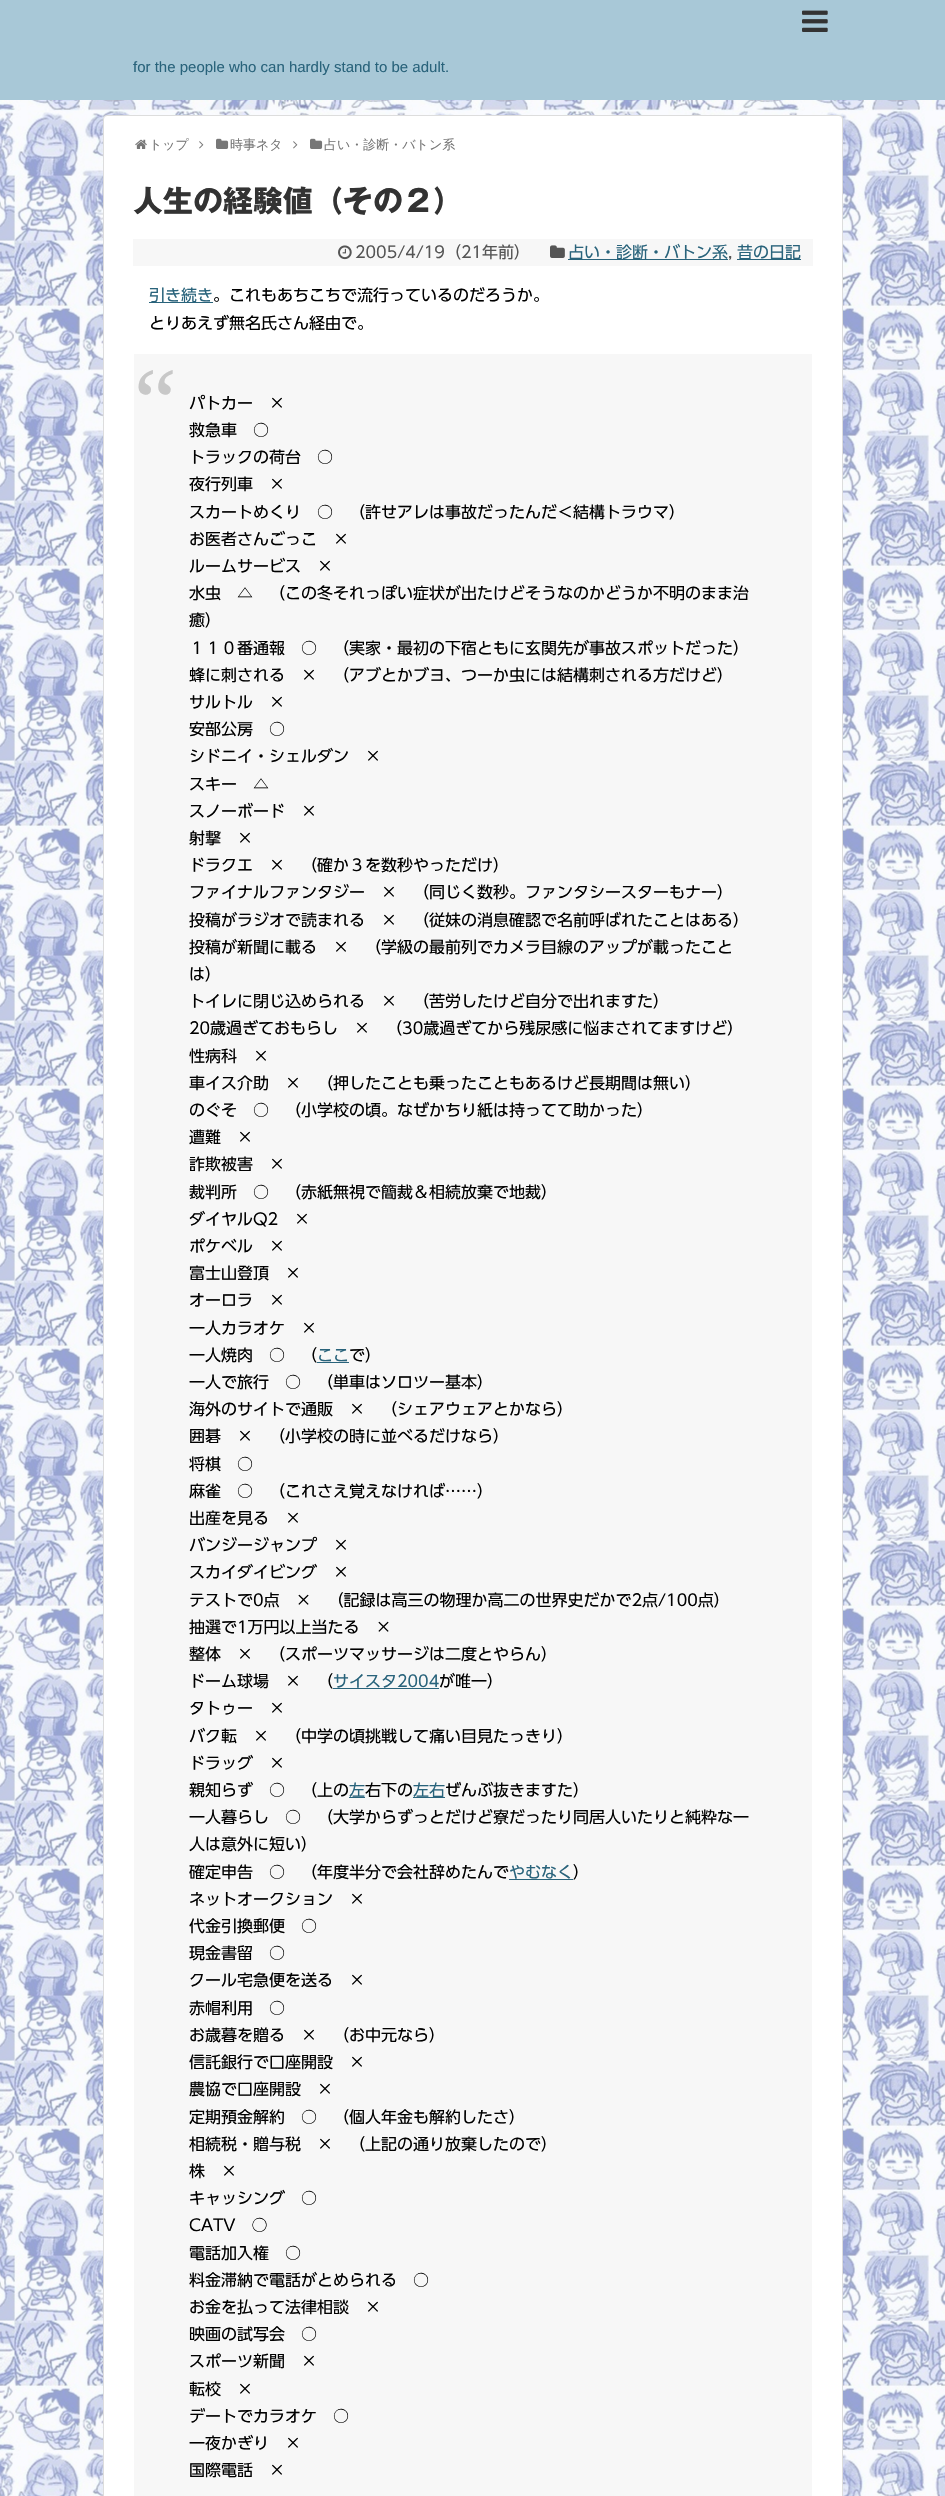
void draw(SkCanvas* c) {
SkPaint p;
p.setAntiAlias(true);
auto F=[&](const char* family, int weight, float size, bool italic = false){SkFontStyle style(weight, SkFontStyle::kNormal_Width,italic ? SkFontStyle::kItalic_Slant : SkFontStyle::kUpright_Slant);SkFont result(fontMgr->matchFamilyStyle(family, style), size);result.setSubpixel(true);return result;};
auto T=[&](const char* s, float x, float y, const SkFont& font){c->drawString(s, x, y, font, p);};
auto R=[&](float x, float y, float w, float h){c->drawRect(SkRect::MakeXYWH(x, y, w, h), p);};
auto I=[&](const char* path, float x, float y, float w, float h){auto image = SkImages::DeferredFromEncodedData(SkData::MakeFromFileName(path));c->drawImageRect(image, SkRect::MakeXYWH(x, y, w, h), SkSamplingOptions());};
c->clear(0xffffffff);
I("1.png",0,100,945,2396);
p.setColor(0xffa8c8d7);
R(0,0,945,100);
I("2.png",802,10,26,22);
auto f1 = F("Liberation Sans",400,15);
p.setColor(0xff29637b);
T("for the people who can hardly stand to be adult.",133,72,f1);
p.setColor(0xffffffff);
c->drawRoundRect(SkRect::MakeXYWH(103.5,115.5,739,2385),3.5,3.5,p);
p.setStroke(true);
p.setStrokeWidth(1);
p.setColor(0xffdddddd);
c->drawRoundRect(SkRect::MakeXYWH(103.5,115.5,739,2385),3.5,3.5,p);
I("3.png",135,139,12,10);
auto f2 = F("WenQuanYi Zen Hei",500,13);
p.setStroke(false);
p.setColor(0xff777777);
T("トップ",149,149,f2);
I("4.png",199,141,5,8);
I("5.png",216,138,13,11);
T("時事ネタ",230,149,f2);
I("4.png",293,141,5,8);
I("5.png",310,138,13,11);
T("占い・診断・バトン系",324,149,f2);
auto f3 = F("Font",700,30);
p.setColor(0xff333333);
T("人生の経験値（その２）",133,212,f3);
p.setColor(0xfff7f7f7);
R(133,239,680,27);
I("6.png",338,245,14,15);
auto f4 = F("Font",400,16);
p.setColor(0xff555555);
T("2005/4/19（21年前）",355,258,f4);
I("7.png",550,245,15,13);
p.setColor(0xff29637b);
R(568,259,160,1);
T("占い・診断・バトン系",568,258,f4);
p.setColor(0xff555555);
T(",",728,258,f4);
p.setColor(0xff29637b);
R(737,259,64,1);
T("昔の日記",737,258,f4);
R(149,302,64,1);
T("引き続き",149,301,f4);
p.setColor(0xff000000);
T("。これもあちこちで流行っているのだろうか。",213,301,f4);
T("とりあえず無名氏さん経由で。",149,329,f4);
p.setColor(0xfff7f7f7);
R(134,354,678,2142);
auto f5 = F("Liberation Serif",400,96);
p.setColor(0xffc8c8c8);
T("“",134,434,f5);
p.setColor(0xff000000);
T("パトカー　×",189,409,f4);
T("救急車　○",189,436,f4);
T("トラックの荷台　○",189,463,f4);
T("夜行列車　×",189,490,f4);
T("スカートめくり　○　（許せアレは事故だったんだ＜結構トラウマ）",189,518,f4);
T("お医者さんごっこ　×",189,545,f4);
T("ルームサービス　×",189,572,f4);
T("水虫　△　（この冬それっぽい症状が出たけどそうなのかどうか不明のまま治",189,599,f4);
T("癒）",189,626,f4);
T("１１０番通報　○　（実家・最初の下宿ともに玄関先が事故スポットだった）",189,654,f4);
T("蜂に刺される　×　（アブとかブヨ、つーか虫には結構刺される方だけど）",189,681,f4);
T("サルトル　×",189,708,f4);
T("安部公房　○",189,735,f4);
T("シドニイ・シェルダン　×",189,762,f4);
T("スキー　△",189,790,f4);
T("スノーボード　×",189,817,f4);
T("射撃　×",189,844,f4);
T("ドラクエ　×　（確か３を数秒やっただけ）",189,871,f4);
T("ファイナルファンタジー　×　（同じく数秒。ファンタシースターもナー）",189,898,f4);
T("投稿がラジオで読まれる　×　（従妹の消息確認で名前呼ばれたことはある）",189,926,f4);
T("投稿が新聞に載る　×　（学級の最前列でカメラ目線のアップが載ったこと",189,953,f4);
T("は）",189,980,f4);
T("トイレに閉じ込められる　×　（苦労したけど自分で出れますた）",189,1007,f4);
T("20歳過ぎておもらし　×　（30歳過ぎてから残尿感に悩まされてますけど）",189,1034,f4);
T("性病科　×",189,1062,f4);
T("車イス介助　×　（押したことも乗ったこともあるけど長期間は無い）",189,1089,f4);
T("のぐそ　○　（小学校の頃。なぜかちり紙は持ってて助かった）",189,1116,f4);
T("遭難　×",189,1143,f4);
T("詐欺被害　×",189,1170,f4);
T("裁判所　○　（赤紙無視で簡裁＆相続放棄で地裁）",189,1198,f4);
T("ダイヤルQ2　×",189,1225,f4);
T("ポケベル　×",189,1252,f4);
T("富士山登頂　×",189,1279,f4);
T("オーロラ　×",189,1306,f4);
T("一人カラオケ　×",189,1334,f4);
T("一人焼肉　○　（",189,1361,f4);
p.setColor(0xff29637b);
T("ここ",317,1361,f4);
R(317,1362,32,1);
p.setColor(0xff000000);
T("で）",349,1361,f4);
T("一人で旅行　○　（単車はソロツー基本）",189,1388,f4);
T("海外のサイトで通販　×　（シェアウェアとかなら）",189,1415,f4);
T("囲碁　×　（小学校の時に並べるだけなら）",189,1442,f4);
T("将棋　○",189,1470,f4);
T("麻雀　○　（これさえ覚えなければ……）",189,1497,f4);
T("出産を見る　×",189,1524,f4);
T("バンジージャンプ　×",189,1551,f4);
T("スカイダイビング　×",189,1578,f4);
T("テストで0点　×　（記録は高三の物理か高二の世界史だかで2点/100点）",189,1606,f4);
T("抽選で1万円以上当たる　×",189,1633,f4);
T("整体　×　（スポーツマッサージは二度とやらん）",189,1660,f4);
T("ドーム球場　×　（",189,1687,f4);
p.setColor(0xff29637b);
T("サイスタ2004",333,1687,f4);
R(333,1688,106,1);
p.setColor(0xff000000);
T("が唯一）",439,1687,f4);
T("タトゥー　×",189,1714,f4);
T("バク転　×　（中学の頃挑戦して痛い目見たっきり）",189,1742,f4);
T("ドラッグ　×",189,1769,f4);
T("親知らず　○　（上の",189,1796,f4);
p.setColor(0xff29637b);
T("左",349,1796,f4);
R(349,1797,16,1);
p.setColor(0xff000000);
T("右下の",365,1796,f4);
p.setColor(0xff29637b);
R(413,1797,32,1);
T("左右",413,1796,f4);
p.setColor(0xff000000);
T("ぜんぶ抜きますた）",445,1796,f4);
T("一人暮らし　○　（大学からずっとだけど寮だったり同居人いたりと純粋な一",189,1823,f4);
T("人は意外に短い）",189,1850,f4);
T("確定申告　○　（年度半分で会社辞めたんで",189,1878,f4);
p.setColor(0xff29637b);
T("やむなく",509,1878,f4);
R(509,1879,64,1);
p.setColor(0xff000000);
T("）",573,1878,f4);
T("ネットオークション　×",189,1905,f4);
T("代金引換郵便　○",189,1932,f4);
T("現金書留　○",189,1959,f4);
T("クール宅急便を送る　×",189,1986,f4);
T("赤帽利用　○",189,2014,f4);
T("お歳暮を贈る　×　（お中元なら）",189,2041,f4);
T("信託銀行で口座開設　×",189,2068,f4);
T("農協で口座開設　×",189,2095,f4);
T("定期預金解約　○　（個人年金も解約したさ）",189,2123,f4);
T("相続税・贈与税　×　（上記の通り放棄したので）",189,2150,f4);
T("株　×",189,2177,f4);
T("キャッシング　○",189,2204,f4);
T("CATV　○",189,2231,f4);
T("電話加入権　○",189,2259,f4);
T("料金滞納で電話がとめられる　○",189,2286,f4);
T("お金を払って法律相談　×",189,2313,f4);
T("映画の試写会　○",189,2340,f4);
T("スポーツ新聞　×",189,2367,f4);
T("転校　×",189,2395,f4);
T("デートでカラオケ　○",189,2422,f4);
T("一夜かぎり　×",189,2449,f4);
T("国際電話　×",189,2476,f4);
}
